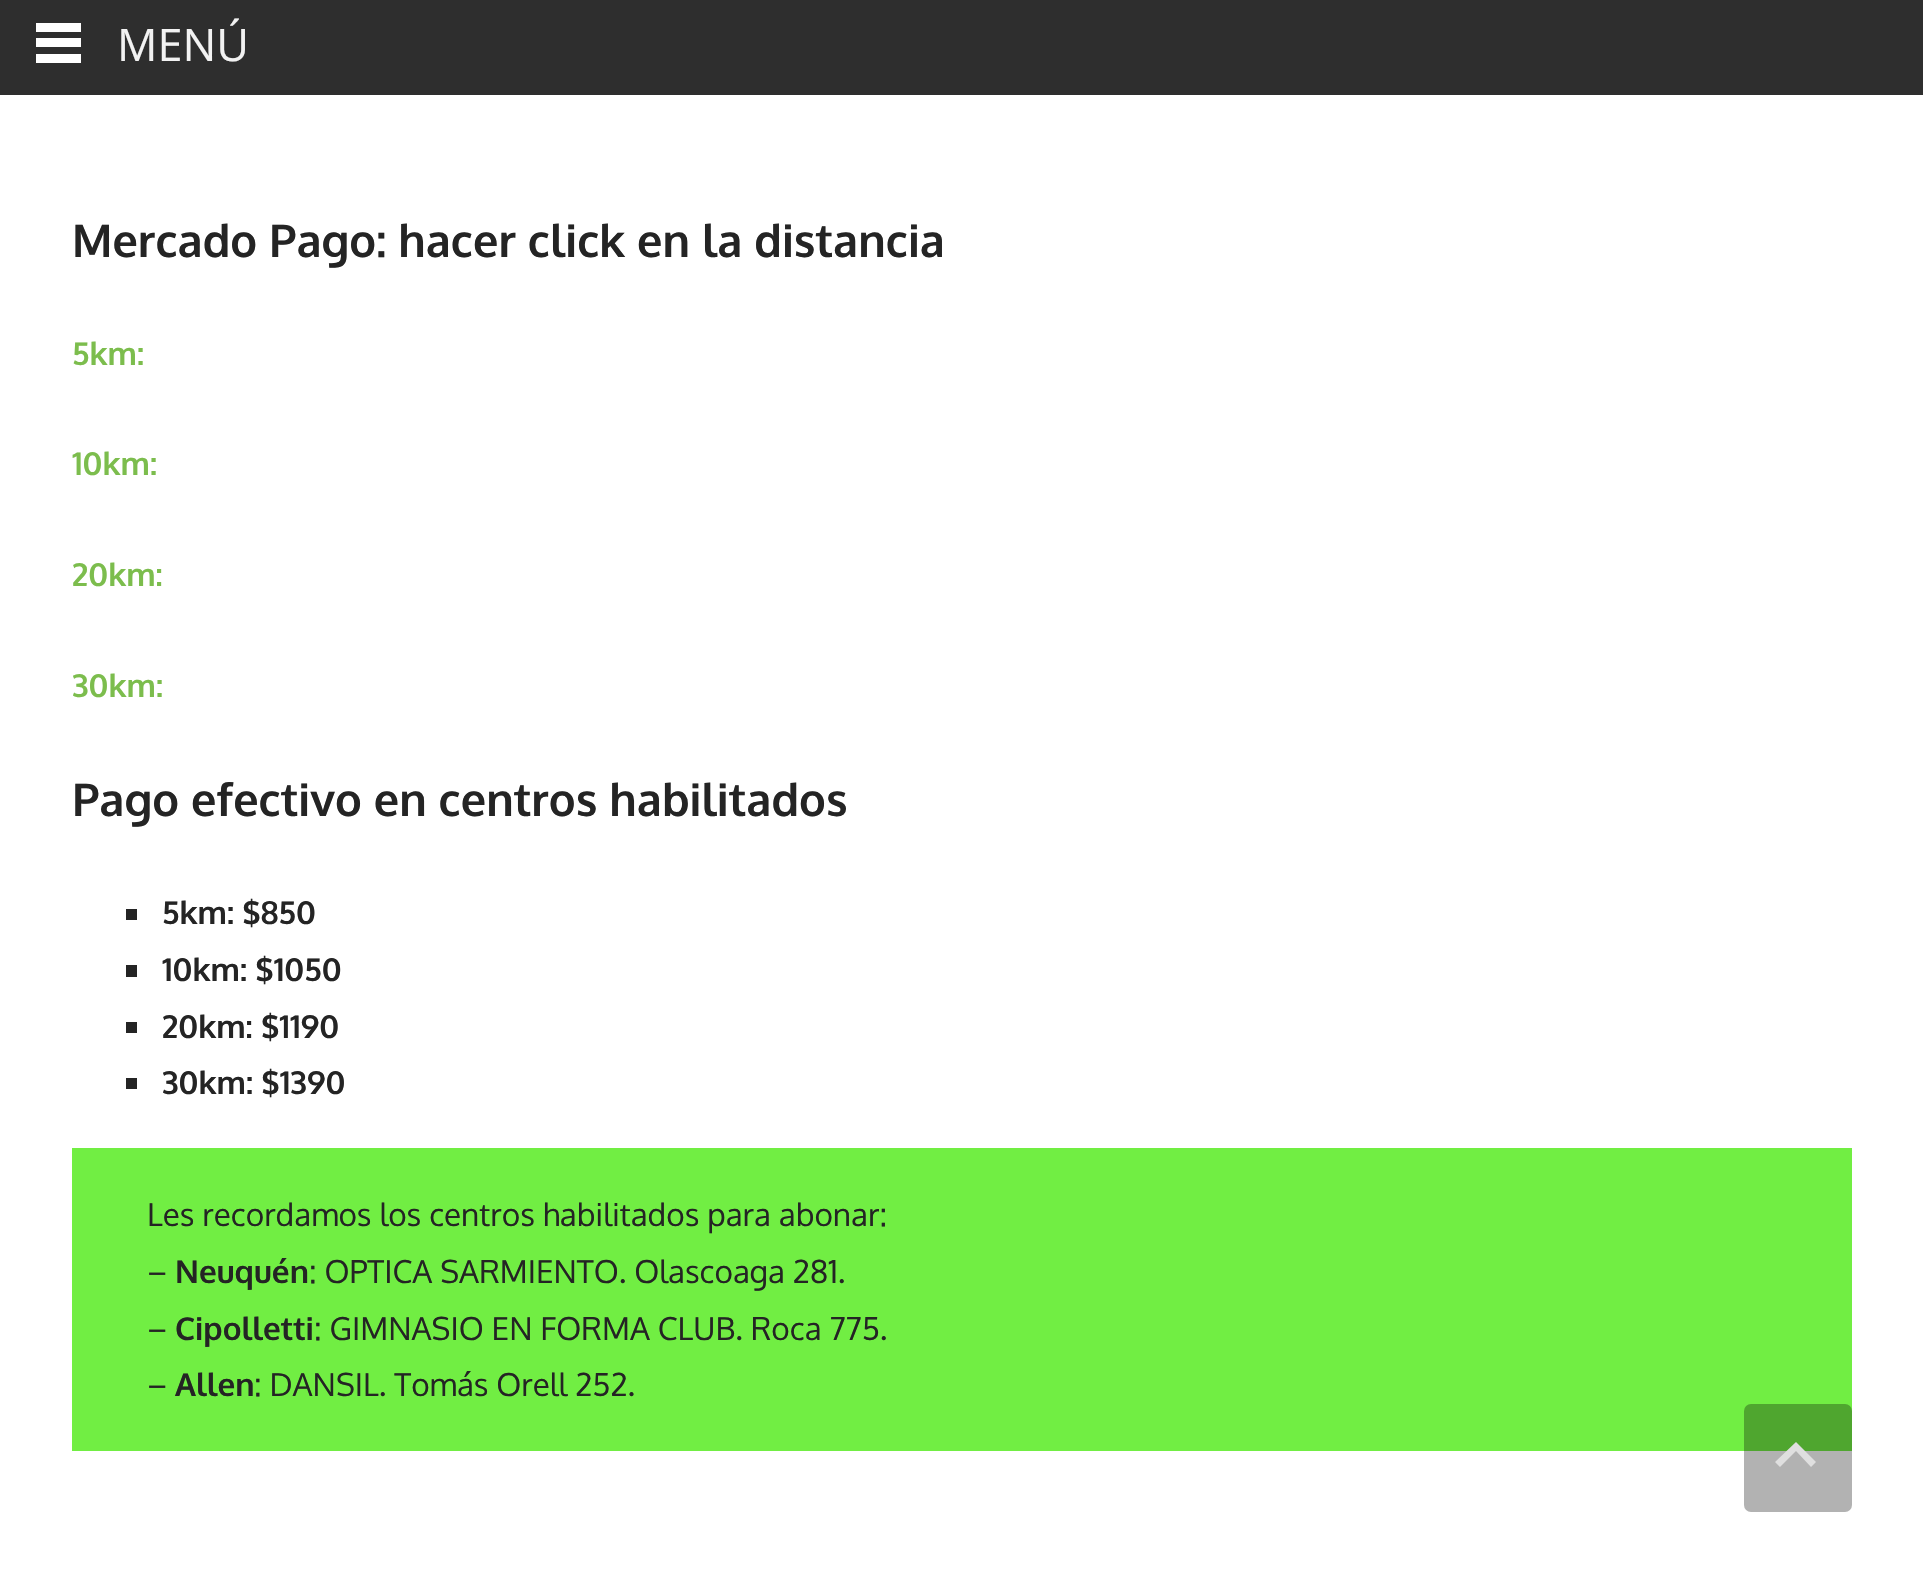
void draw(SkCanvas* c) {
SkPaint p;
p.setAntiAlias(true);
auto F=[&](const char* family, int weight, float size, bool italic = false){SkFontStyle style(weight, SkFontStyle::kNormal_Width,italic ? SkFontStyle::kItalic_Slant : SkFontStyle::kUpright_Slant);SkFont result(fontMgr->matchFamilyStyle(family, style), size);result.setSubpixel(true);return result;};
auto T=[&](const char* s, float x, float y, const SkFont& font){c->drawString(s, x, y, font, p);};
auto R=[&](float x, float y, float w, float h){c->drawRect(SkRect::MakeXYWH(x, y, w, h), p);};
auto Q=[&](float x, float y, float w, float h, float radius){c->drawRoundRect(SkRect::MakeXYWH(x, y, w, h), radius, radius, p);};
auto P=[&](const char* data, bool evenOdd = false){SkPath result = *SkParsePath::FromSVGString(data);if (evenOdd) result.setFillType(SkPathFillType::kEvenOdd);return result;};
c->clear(0xffffffff);
p.setColor(0xff2e2e2e);
R(0,0,1923,95);
p.setColor(0xffffffff);
R(36,23,45,9);
R(36,38,45,9);
R(36,54,45,9);
auto f1 = F("Open Sans",400,45);
p.setColor(0xfff2f2f2);
T("MENÚ",117,61,f1);
auto f2 = F("Oxygen",700,45);
p.setColor(0xff242424);
T("Mercado Pago: hacer click en la distancia",72,257,f2);
auto f3 = F("Oxygen",700,31.5);
p.setColor(0xff7cbd4d);
T("5km:",72,365,f3);
T("10km:",72,475,f3);
T("20km:",72,586,f3);
T("30km:",72,697,f3);
p.setColor(0xff242424);
T("Pago efectivo en centros habilitados",72,816,f2);
R(126,909,11,11);
T("5km: $850",162,924,f3);
R(126,965,11,12);
T("10km: $1050",162,981,f3);
R(126,1022,11,11);
T("20km: $1190",162,1038,f3);
R(126,1078,11,11);
T("30km: $1390",162,1094,f3);
p.setColor(0xff71ee43);
R(72,1148,1780,303);
auto f4 = F("Oxygen",400,31.5);
p.setColor(0xff242424);
T("Les recordamos los centros habilitados para abonar:",147,1226,f4);
T("–",147,1283,f4);
T("Neuquén",175,1283,f3);
T(": OPTICA SARMIENTO. Olascoaga 281.",309,1283,f4);
T("–",147,1340,f4);
T("Cipolletti",175,1340,f3);
T(": GIMNASIO EN FORMA CLUB. Roca 775.",314,1340,f4);
T("–",147,1396,f4);
T("Allen",175,1396,f3);
T(": DANSIL. Tomás Orell 252.",254,1396,f4);
p.setColor(0x4d000000);
Q(1744,1404,108,108,7);
p.setColor(0xffdfdfdf);
c->drawPath(P("M1811 1467l-15-16l-16 16l-5-5l21-20l20 20z"),p);
}
